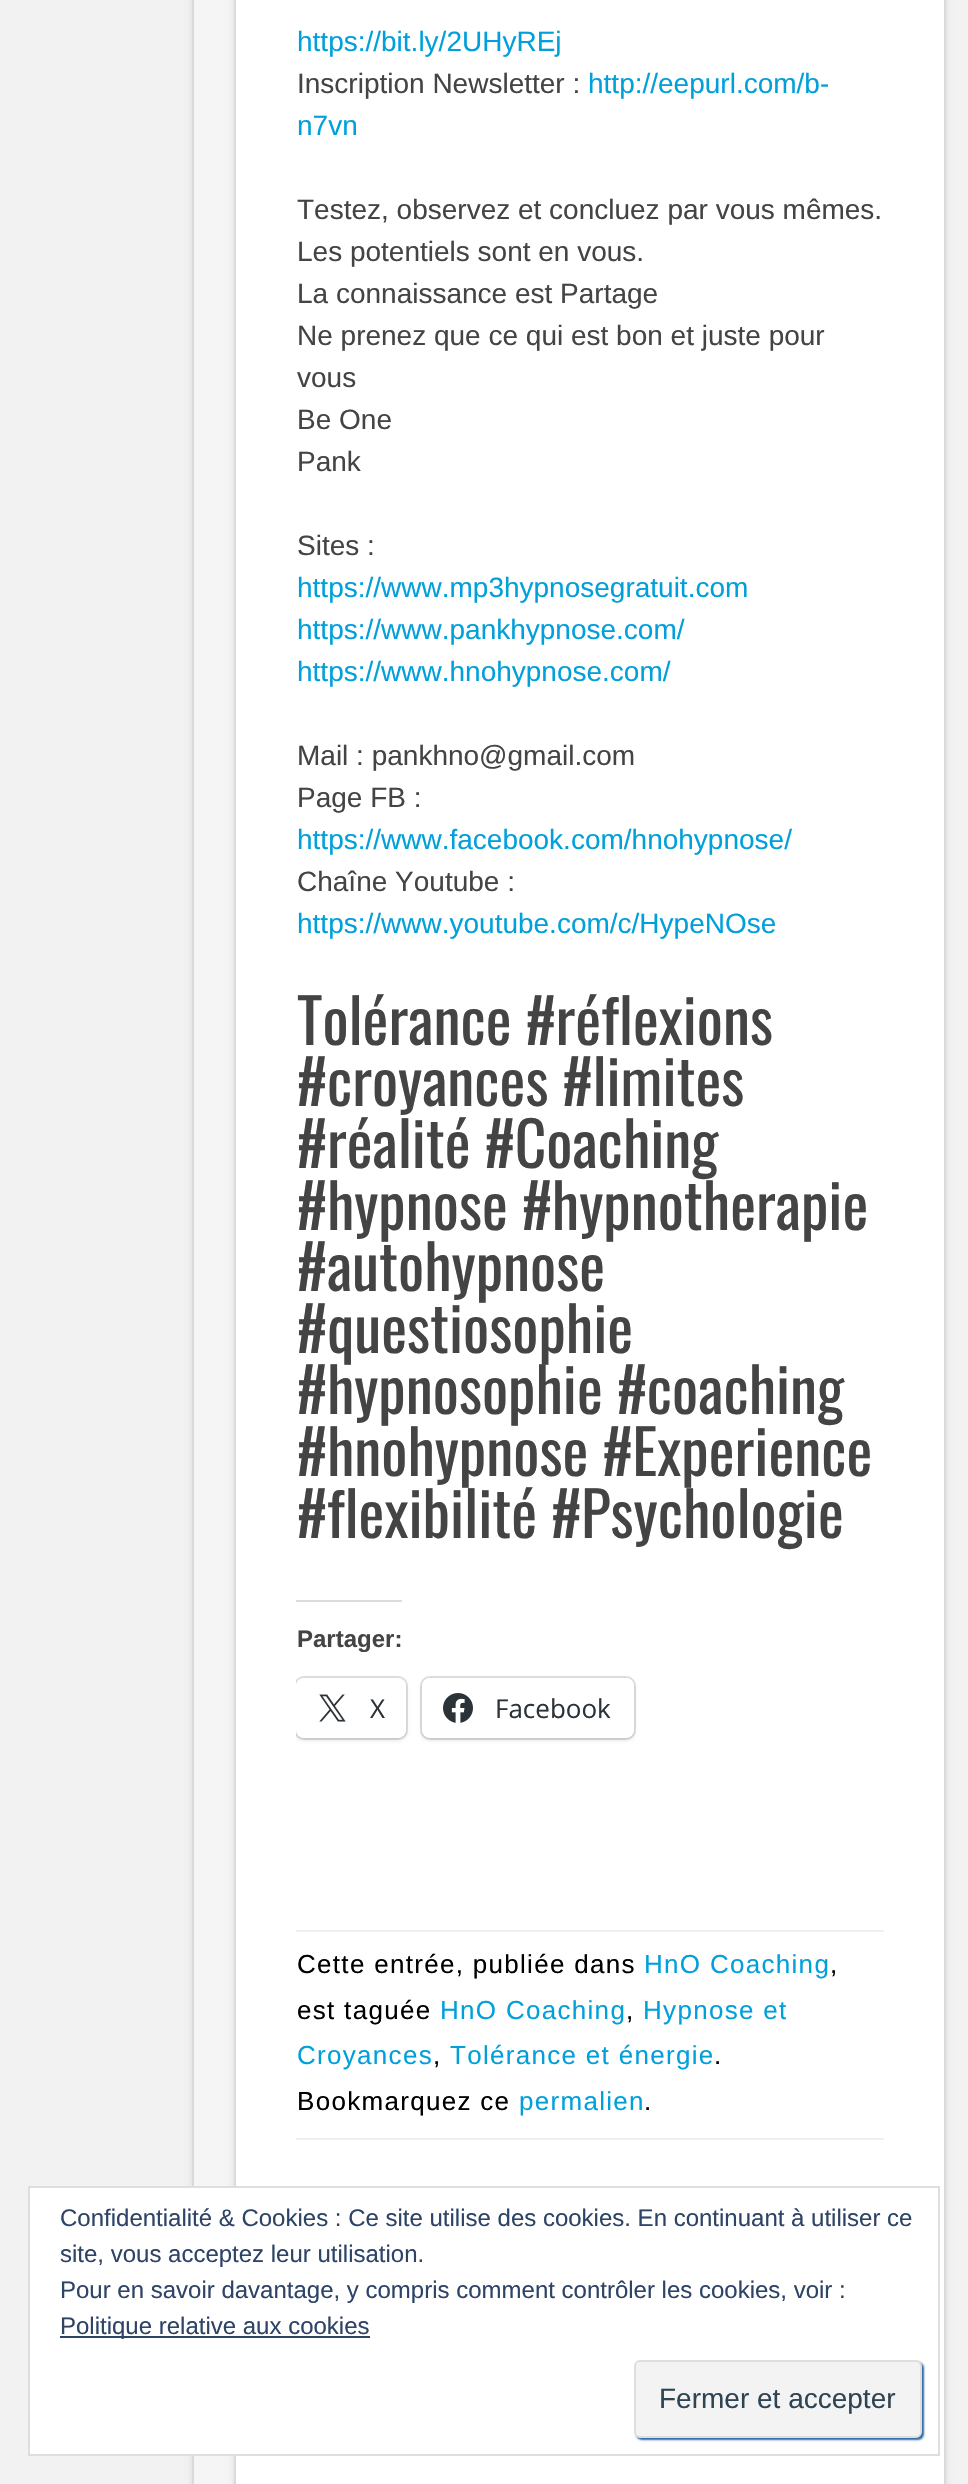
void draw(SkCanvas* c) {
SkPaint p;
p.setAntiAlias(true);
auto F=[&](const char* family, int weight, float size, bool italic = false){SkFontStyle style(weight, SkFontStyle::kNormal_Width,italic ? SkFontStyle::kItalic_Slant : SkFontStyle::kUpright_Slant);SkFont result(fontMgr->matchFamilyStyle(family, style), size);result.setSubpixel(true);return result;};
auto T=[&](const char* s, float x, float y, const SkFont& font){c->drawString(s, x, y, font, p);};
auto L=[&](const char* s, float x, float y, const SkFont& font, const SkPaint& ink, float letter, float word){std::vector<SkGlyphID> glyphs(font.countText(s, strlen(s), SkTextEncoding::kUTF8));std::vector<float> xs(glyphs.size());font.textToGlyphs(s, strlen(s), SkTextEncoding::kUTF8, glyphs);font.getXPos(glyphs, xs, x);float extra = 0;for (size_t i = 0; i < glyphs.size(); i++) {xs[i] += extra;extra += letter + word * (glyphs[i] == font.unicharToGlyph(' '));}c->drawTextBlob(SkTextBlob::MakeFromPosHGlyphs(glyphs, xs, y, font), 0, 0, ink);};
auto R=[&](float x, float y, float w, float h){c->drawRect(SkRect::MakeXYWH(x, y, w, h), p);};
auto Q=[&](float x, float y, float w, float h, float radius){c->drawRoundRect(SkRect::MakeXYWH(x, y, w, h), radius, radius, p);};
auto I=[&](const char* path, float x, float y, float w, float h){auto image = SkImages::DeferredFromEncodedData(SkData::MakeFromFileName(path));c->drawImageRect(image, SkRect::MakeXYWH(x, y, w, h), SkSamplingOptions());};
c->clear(0xfff2f2f2);
p.setColor(0xffdadada);
p.setMaskFilter(SkMaskFilter::MakeBlur(kNormal_SkBlurStyle, 3));
c->drawRoundRect(SkRect::MakeXYWH(192,-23,738,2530),14,14,p);
p.setMaskFilter(nullptr);
p.setColor(0xfff5f5f5);
R(194,0,40,2484);
p.setStroke(true);
p.setStrokeWidth(2);
p.setColor(0xffdadada);
c->drawRect(SkRect::MakeXYWH(193,-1,736,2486),p);
p.setStroke(false);
p.setMaskFilter(SkMaskFilter::MakeBlur(kNormal_SkBlurStyle, 3));
c->drawRoundRect(SkRect::MakeXYWH(234,-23,712,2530),14,14,p);
p.setMaskFilter(nullptr);
p.setColor(0xffffffff);
c->drawRect(SkRect::MakeXYWH(235,-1,710,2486),p);
p.setStroke(true);
p.setColor(0xffdadada);
c->drawRect(SkRect::MakeXYWH(235,-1,710,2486),p);
auto f1 = F("Liberation Sans",400,28);
p.setStroke(false);
p.setColor(0xff01a0db);
T("https://bit.ly/2UHyREj",297,51,f1);
p.setColor(0xff444444);
T("Inscription Newsletter :",297,93,f1);
p.setColor(0xff01a0db);
T("http://eepurl.com/b-",588,93,f1);
T("n7vn",297,135,f1);
p.setColor(0xff444444);
T("Testez, observez et concluez par vous mêmes.",297,219,f1);
T("Les potentiels sont en vous.",297,261,f1);
T("La connaissance est Partage",297,303,f1);
T("Ne prenez que ce qui est bon et juste pour",297,345,f1);
T("vous",297,387,f1);
T("Be One",297,429,f1);
T("Pank",297,471,f1);
T("Sites :",297,555,f1);
p.setColor(0xff01a0db);
T("https://www.mp3hypnosegratuit.com",297,597,f1);
T("https://www.pankhypnose.com/",297,639,f1);
T("https://www.hnohypnose.com/",297,681,f1);
p.setColor(0xff444444);
T("Mail : pankhno@gmail.com",297,765,f1);
T("Page FB :",297,807,f1);
p.setColor(0xff01a0db);
T("https://www.facebook.com/hnohypnose/",297,849,f1);
p.setColor(0xff444444);
T("Chaîne Youtube :",297,891,f1);
p.setColor(0xff01a0db);
T("https://www.youtube.com/c/HypeNOse",297,933,f1);
auto f2 = F("Oswald",400,61.5);
p.setColor(0xff444444);
T("Tolérance #réflexions",297,1045,f2);
T("#croyances #limites",297,1106,f2);
T("#réalité #Coaching",297,1168,f2);
T("#hypnose #hypnotherapie",297,1230,f2);
T("#autohypnose",297,1291,f2);
T("#questiosophie",297,1353,f2);
T("#hypnosophie #coaching",297,1414,f2);
T("#hnohypnose #Experience",297,1476,f2);
T("#flexibilité #Psychologie",297,1538,f2);
p.setColor(0xffdcdcde);
R(296,1600,106,2);
auto f3 = F("Liberation Sans",700,24);
p.setColor(0xff444444);
T("Partager:",297,1647,f3);
c->save();
c->clipRect(SkRect::MakeXYWH(296,0,588,1890));
p.setStroke(true);
p.setColor(0xffe0e0e0);
c->drawRoundRect(SkRect::MakeXYWH(295,1677,112,62),9,9,p);
c->restore();
c->save();
c->clipRect(SkRect::MakeXYWH(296,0,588,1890));
p.setStroke(false);
p.setColor(0x1f000000);
p.setMaskFilter(SkMaskFilter::MakeBlur(kNormal_SkBlurStyle, 2));
c->drawRoundRect(SkRect::MakeXYWH(296,1680,110,60),8,8,p);
p.setMaskFilter(nullptr);
c->restore();
p.setColor(0xffffffff);
Q(296,1678,110,60,8);
I("1.png",319,1694,27,28);
auto f4 = F("Open Sans",400,26);
p.setColor(0xff2c3338);
T("X",370,1718,f4);
p.setStroke(true);
p.setColor(0xffe0e0e0);
c->drawRoundRect(SkRect::MakeXYWH(421,1677,214,62),9,9,p);
p.setStroke(false);
p.setColor(0x1f000000);
p.setMaskFilter(SkMaskFilter::MakeBlur(kNormal_SkBlurStyle, 2));
c->drawRoundRect(SkRect::MakeXYWH(422,1680,212,60),8,8,p);
p.setMaskFilter(nullptr);
p.setColor(0xffffffff);
Q(422,1678,212,60,8);
I("2.png",443,1693,30,30);
p.setColor(0xff2c3338);
T("Facebook",495,1718,f4);
p.setColor(0xffefefef);
R(296,1930,588,2);
R(296,2138,588,2);
auto f5 = F("Liberation Sans",400,26);
p.setColor(0xff000000);
L("Cette entrée, publiée dans",297,1973,f5,p,1.3,0);
p.setColor(0xff01a0db);
L("HnO Coaching",644,1973,f5,p,1.3,0);
p.setColor(0xff000000);
L(",",830,1973,f5,p,1.3,0);
L("est taguée",297,2019,f5,p,1.3,0);
p.setColor(0xff01a0db);
L("HnO Coaching",440,2019,f5,p,1.3,0);
p.setColor(0xff000000);
L(",",626,2019,f5,p,1.3,0);
p.setColor(0xff01a0db);
L("Hypnose et",643,2019,f5,p,1.3,0);
L("Croyances",297,2064,f5,p,1.3,0);
p.setColor(0xff000000);
L(",",433,2064,f5,p,1.3,0);
p.setColor(0xff01a0db);
L("Tolérance et énergie",450,2064,f5,p,1.3,0);
p.setColor(0xff000000);
L(".",714,2064,f5,p,1.3,0);
L("Bookmarquez ce",297,2110,f5,p,1.3,0);
p.setColor(0xff01a0db);
L("permalien",519,2110,f5,p,1.3,0);
p.setColor(0xff000000);
L(".",644,2110,f5,p,1.3,0);
p.setColor(0xffffffff);
R(30,2188,206,266);
p.setStroke(true);
p.setColor(0xffdedede);
c->drawRect(SkRect::MakeXYWH(29,2187,910,268),p);
auto f6 = F("Liberation Sans",400,24);
p.setStroke(false);
p.setColor(0xff2e4467);
T("Confidentialité & Cookies : Ce site utilise des cookies. En continuant à utiliser ce",60,2226,f6);
T("site, vous acceptez leur utilisation.",60,2262,f6);
T("Pour en savoir davantage, y compris comment contrôler les cookies, voir :",60,2298,f6);
R(60,2336,310,2);
T("Politique relative aux cookies",60,2334,f6);
p.setColor(0xff2e6aa7);
p.setMaskFilter(SkMaskFilter::MakeBlur(kNormal_SkBlurStyle, 1));
c->drawRoundRect(SkRect::MakeXYWH(636,2362,288,78),6,6,p);
p.setMaskFilter(nullptr);
p.setColor(0xfff3f3f3);
c->drawRoundRect(SkRect::MakeXYWH(635,2361,286,76),5,5,p);
p.setStroke(true);
p.setColor(0xffdedede);
c->drawRoundRect(SkRect::MakeXYWH(635,2361,286,76),5,5,p);
p.setStroke(false);
p.setColor(0xff2e4453);
T("Fermer et accepter",659,2408,f1);
}
